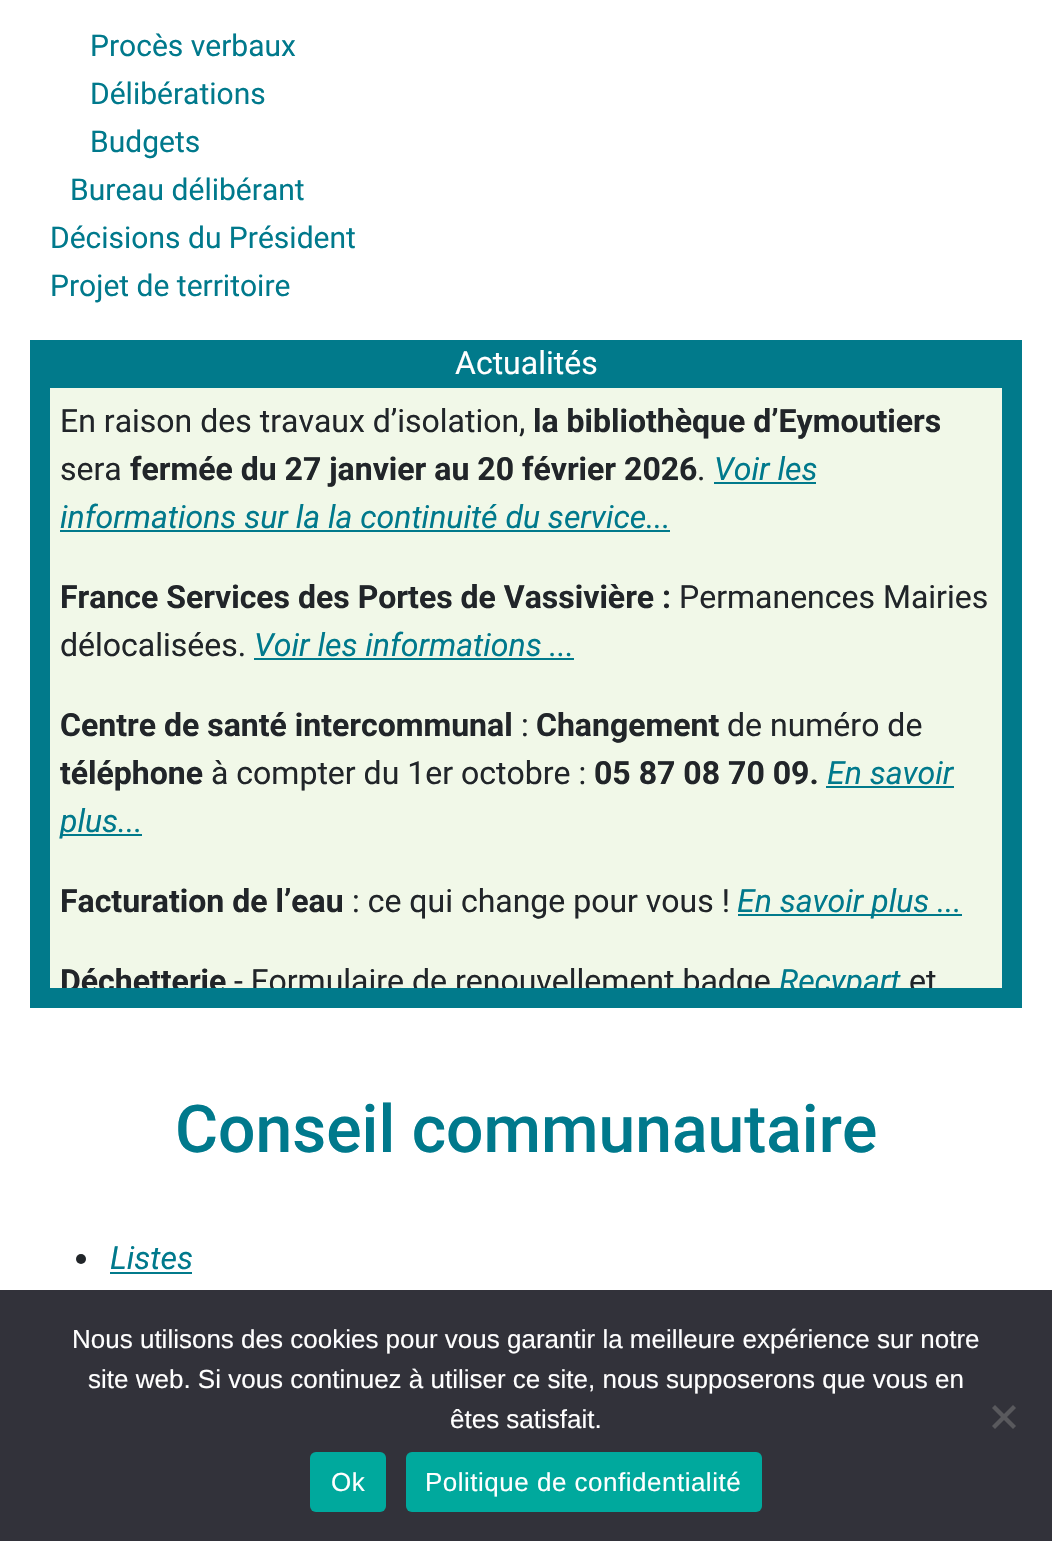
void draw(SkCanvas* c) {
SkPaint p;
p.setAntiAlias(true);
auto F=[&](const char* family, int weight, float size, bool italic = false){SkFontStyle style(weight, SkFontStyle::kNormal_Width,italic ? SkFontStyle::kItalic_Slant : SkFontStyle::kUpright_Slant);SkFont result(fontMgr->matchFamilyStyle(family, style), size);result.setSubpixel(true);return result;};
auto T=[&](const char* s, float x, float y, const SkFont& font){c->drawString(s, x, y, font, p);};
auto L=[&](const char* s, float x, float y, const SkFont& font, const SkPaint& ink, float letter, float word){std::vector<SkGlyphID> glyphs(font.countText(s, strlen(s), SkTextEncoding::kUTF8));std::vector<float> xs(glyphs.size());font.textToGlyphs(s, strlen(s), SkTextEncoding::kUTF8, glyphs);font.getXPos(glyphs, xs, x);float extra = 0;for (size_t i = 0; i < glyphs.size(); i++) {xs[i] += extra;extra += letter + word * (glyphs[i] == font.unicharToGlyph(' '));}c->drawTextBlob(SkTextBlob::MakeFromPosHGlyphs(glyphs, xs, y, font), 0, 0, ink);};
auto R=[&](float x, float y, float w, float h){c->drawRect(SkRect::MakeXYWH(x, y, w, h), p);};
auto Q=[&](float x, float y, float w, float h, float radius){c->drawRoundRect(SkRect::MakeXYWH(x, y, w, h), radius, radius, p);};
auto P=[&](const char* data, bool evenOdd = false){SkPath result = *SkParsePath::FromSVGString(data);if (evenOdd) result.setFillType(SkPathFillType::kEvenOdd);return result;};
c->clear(0xffffffff);
auto f1 = F("Roboto",400,30);
p.setColor(0xff00798c);
T("Procès verbaux",90,56,f1);
T("Délibérations",90,104,f1);
T("Budgets",90,152,f1);
T("Bureau délibérant",70,200,f1);
T("Décisions du Président",50,248,f1);
T("Projet de territoire",50,296,f1);
p.setColor(0xff017a8b);
R(30,340,992,668);
auto f2 = F("Roboto",400,32);
p.setColor(0xffffffff);
T("Actualités",455,374,f2);
p.setColor(0xfff1f8e8);
R(50,388,952,600);
p.setColor(0xff212529);
T("En raison des travaux d’isolation,",60,432,f2);
auto f3 = F("Roboto",700,32);
T("la bibliothèque d’Eymoutiers",533,432,f3);
T("sera",60,480,f2);
T("fermée du 27 janvier au 20 février 2026",130,480,f3);
T(".",697,480,f2);
auto f4 = F("Roboto",400,32,true);
p.setColor(0xff00798c);
T("Voir les",714,480,f4);
p.setColor(0xff017a8b);
R(714,482,102,2);
p.setColor(0xff00798c);
T("informations sur la la continuité du service...",60,528,f4);
p.setColor(0xff017a8b);
R(60,530,610,2);
p.setColor(0xff212529);
T("France Services des Portes de Vassivière :",60,608,f3);
T("Permanences Mairies",679,608,f2);
T("délocalisées.",60,656,f2);
p.setColor(0xff00798c);
T("Voir les informations ...",254,656,f4);
p.setColor(0xff017a8b);
R(254,658,320,2);
p.setColor(0xff212529);
T("Centre de santé intercommunal",60,736,f3);
T(":",521,736,f2);
T("Changement",536,736,f3);
T("de numéro de",727,736,f2);
T("téléphone",60,784,f3);
T("à compter du 1er octobre :",211,784,f2);
T("05 87 08 70 09.",594,784,f3);
p.setColor(0xff00798c);
T("En savoir",827,784,f4);
p.setColor(0xff017a8b);
R(826,786,128,2);
R(60,834,82,2);
p.setColor(0xff00798c);
T("plus...",60,832,f4);
p.setColor(0xff212529);
T("Facturation de l’eau",60,912,f3);
T(": ce qui change pour vous !",352,912,f2);
p.setColor(0xff017a8b);
R(738,914,224,2);
p.setColor(0xff00798c);
T("En savoir plus ...",737,912,f4);
c->save();
c->clipRect(SkRect::MakeXYWH(50,388,952,600));
p.setColor(0xff212529);
T("Déchetterie",60,992,f3);
T("- Formulaire de renouvellement badge",234,992,f2);
p.setColor(0xff00798c);
T("Recypart",779,992,f4);
p.setColor(0xff212529);
T("et",909,992,f2);
c->restore();
auto f5 = F("Roboto",500,66);
p.setColor(0xff00798c);
T("Conseil communautaire",175,1152,f5);
p.setColor(0xff212529);
c->drawCircle(81,1259,5,p);
p.setColor(0xff00798c);
T("Listes",110,1269,f4);
p.setColor(0xff017a8b);
R(110,1272,82,2);
p.setColor(0xff32323a);
R(0,1290,1052,251);
auto f6 = F("Liberation Sans",400,26);
p.setColor(0xffffffff);
T("Nous utilisons des cookies pour vous garantir la meilleure expérience sur notre",72,1348,f6);
T("site web. Si vous continuez à utiliser ce site, nous supposerons que vous en",88,1388,f6);
T("êtes satisfait.",450,1428,f6);
p.setColor(0xff59595d);
c->drawPath(P("M1013 1405l3 3l-21 21l-3-3z"),p);
c->drawPath(P("M992 1408l3-3l21 21l-3 3z"),p);
p.setColor(0xff00a99d);
Q(310,1452,76,60,6);
p.setColor(0xffffffff);
L("Ok",331,1491,f6,p,.5,0);
p.setColor(0xff00a99d);
Q(406,1452,356,60,6);
p.setColor(0xffffffff);
L("Politique de confidentialité",425,1491,f6,p,.5,0);
}
